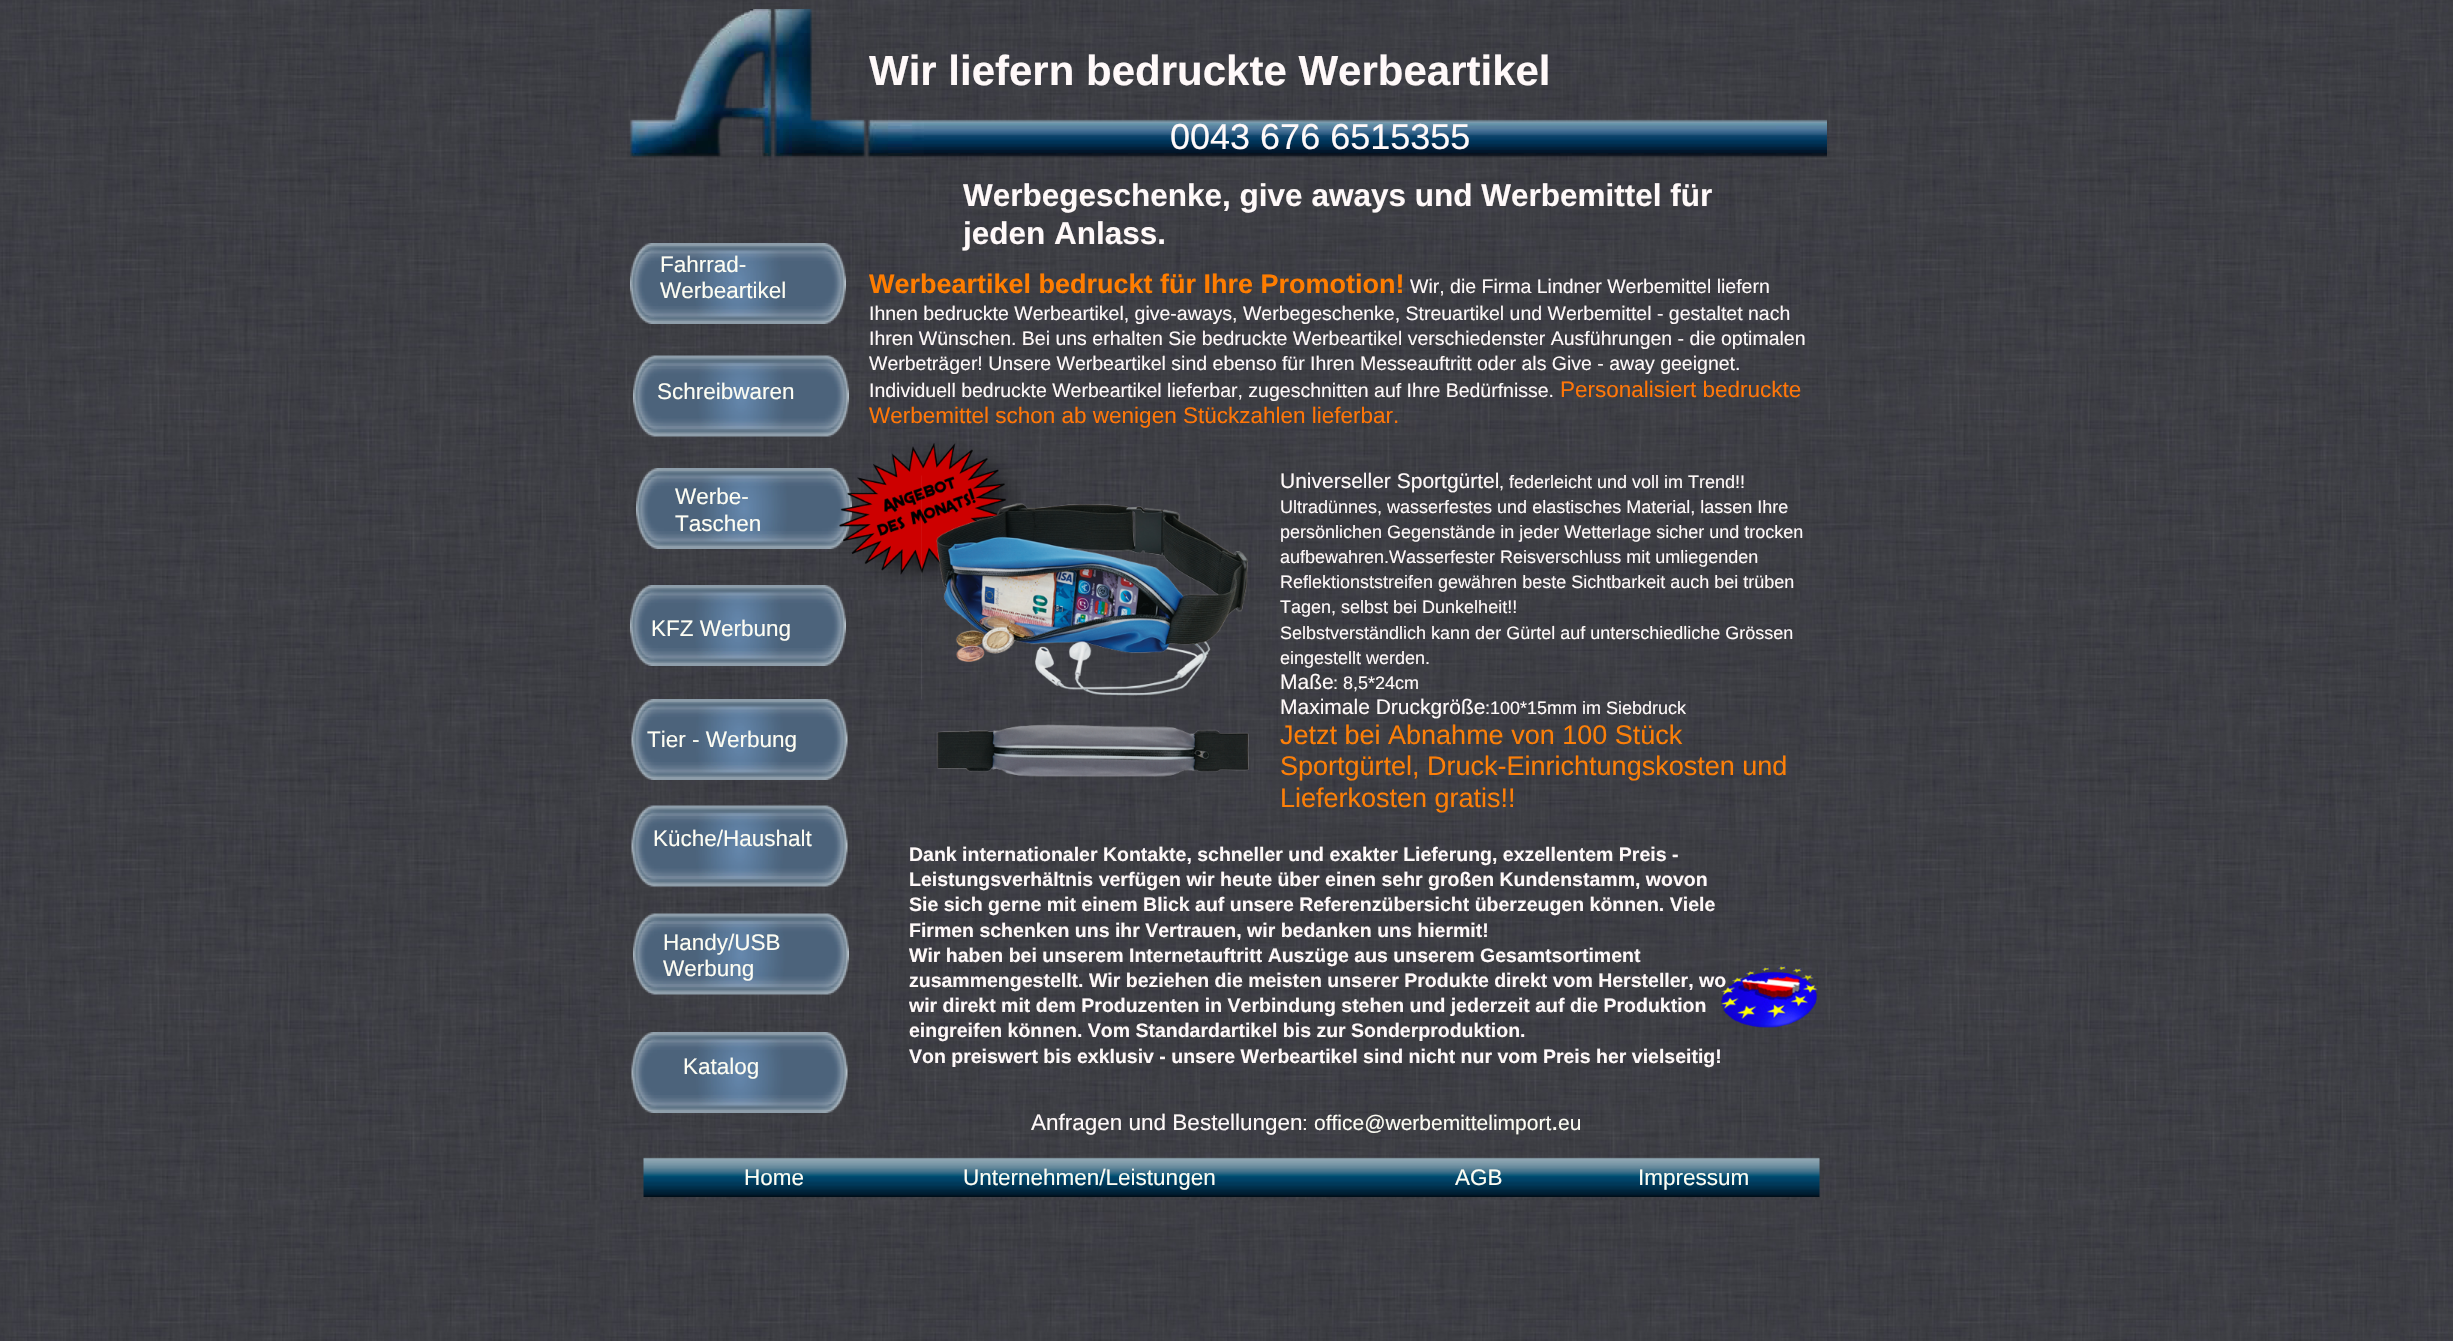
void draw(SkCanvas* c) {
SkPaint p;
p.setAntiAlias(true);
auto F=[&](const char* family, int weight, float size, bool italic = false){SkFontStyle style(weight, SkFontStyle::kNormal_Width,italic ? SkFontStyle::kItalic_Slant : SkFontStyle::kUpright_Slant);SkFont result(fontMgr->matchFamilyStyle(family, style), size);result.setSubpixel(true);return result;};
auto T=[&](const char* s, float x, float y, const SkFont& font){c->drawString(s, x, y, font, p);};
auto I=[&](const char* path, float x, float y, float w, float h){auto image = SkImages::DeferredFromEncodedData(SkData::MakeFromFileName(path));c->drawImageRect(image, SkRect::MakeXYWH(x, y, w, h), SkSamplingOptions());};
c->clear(0xffffffff);
I("1.png",0,0,2453,1341);
I("2.png",630,9,1197,149);
auto f1 = F("Liberation Sans",700,42);
p.setColor(0xfffff9f9);
T("Wir liefern bedruckte Werbeartikel",869,85,f1);
auto f2 = F("Liberation Sans",400,36);
T("0043 676 6515355",1170,149,f2);
auto f3 = F("Liberation Sans",700,31.5);
T("Werbegeschenke, give aways und Werbemittel für",963,206,f3);
T("jeden Anlass.",963,244,f3);
I("3.png",630,243,216,81);
auto f4 = F("Liberation Sans",400,22.5);
p.setColor(0xfffdfdf3);
T("Fahrrad-",660,272,f4);
T("Werbeartikel",660,298,f4);
auto f5 = F("Liberation Sans",700,27);
p.setColor(0xffff7d00);
T("Werbeartikel bedruckt für Ihre Promotion!",869,293,f5);
auto f6 = F("Liberation Sans",400,19.5);
p.setColor(0xfffff9f9);
T("Wir, die Firma Lindner Werbemittel liefern",1410,293,f6);
T("Ihnen bedruckte Werbeartikel, give-aways, Werbegeschenke, Streuartikel und Werbemittel - gestaltet nach",869,320,f6);
T("Ihren Wünschen. Bei uns erhalten Sie bedruckte Werbeartikel verschiedenster Ausführungen - die optimalen",869,345,f6);
T("Werbeträger! Unsere Werbeartikel sind ebenso für Ihren Messeauftritt oder als Give - away geeignet.",869,370,f6);
T("Individuell bedruckte Werbeartikel lieferbar, zugeschnitten auf Ihre Bedürfnisse.",869,397,f6);
p.setColor(0xffff7608);
T("Personalisiert bedruckte",1560,397,f4);
T("Werbemittel schon ab wenigen Stückzahlen lieferbar.",869,423,f4);
I("4.png",633,355,216,82);
p.setColor(0xfffdfdf3);
T("Schreibwaren",657,399,f4);
I("5.png",636,468,216,81);
I("6.png",839,443,182,139);
auto f7 = F("Liberation Sans",400,21);
p.setColor(0xfffff9f9);
T("Universeller Sportgürtel",1280,488,f7);
auto f8 = F("Liberation Sans",400,18);
T(", federleicht und voll im Trend!!",1499,488,f8);
T("Ultradünnes, wasserfestes und elastisches Material, lassen Ihre",1280,513,f8);
T("persönlichen Gegenstände in jeder Wetterlage sicher und trocken",1280,538,f8);
T("aufbewahren.Wasserfester Reisverschluss mit umliegenden",1280,563,f8);
T("Reflektionststreifen gewähren beste Sichtbarkeit auch bei trüben",1280,588,f8);
T("Tagen, selbst bei Dunkelheit!!",1280,613,f8);
T("Selbstverständlich kann der Gürtel auf unterschiedliche Grössen",1280,639,f8);
T("eingestellt werden.",1280,664,f8);
T("Maße",1280,689,f7);
T(": 8,5*24cm",1333,689,f8);
T("Maximale Druckgröße",1280,714,f7);
T(":100*15mm im Siebdruck",1485,714,f8);
auto f9 = F("Liberation Sans",400,27);
p.setColor(0xfffc7f08);
T("Jetzt bei Abnahme von 100 Stück",1280,744,f9);
T("Sportgürtel, Druck-Einrichtungskosten und",1280,775,f9);
T("Lieferkosten gratis!!",1280,807,f9);
p.setColor(0xfffdfdf3);
T("Werbe-",675,504,f4);
T("Taschen",675,531,f4);
I("7.png",921,475,327,225);
I("8.png",630,585,216,81);
T("KFZ Werbung",651,636,f4);
I("9.png",631,699,217,81);
I("10.png",936,724,313,53);
T("Tier - Werbung",647,747,f4);
I("11.png",631,805,217,82);
T("Küche/Haushalt",653,846,f4);
I("12.png",633,913,216,82);
auto f10 = F("Liberation Sans",700,19.5);
p.setColor(0xfffff9f9);
T("Dank internationaler Kontakte, schneller und exakter Lieferung, exzellentem Preis -",909,861,f10);
T("Leistungsverhältnis verfügen wir heute über einen sehr großen Kundenstamm, wovon",909,886,f10);
T("Sie sich gerne mit einem Blick auf unsere Referenzübersicht überzeugen können. Viele",909,911,f10);
T("Firmen schenken uns ihr Vertrauen, wir bedanken uns hiermit!",909,937,f10);
T("Wir haben bei unserem Internetauftritt Auszüge aus unserem Gesamtsortiment",909,962,f10);
T("zusammengestellt. Wir beziehen die meisten unserer Produkte direkt vom Hersteller, wo",909,987,f10);
T("wir direkt mit dem Produzenten in Verbindung stehen und jederzeit auf die Produktion",909,1012,f10);
T("eingreifen können. Vom Standardartikel bis zur Sonderproduktion.",909,1037,f10);
T("Von preiswert bis exklusiv - unsere Werbeartikel sind nicht nur vom Preis her vielseitig!",909,1063,f10);
p.setColor(0xfffdfdf3);
T("Handy/USB",663,950,f4);
T("Werbung",663,976,f4);
I("13.png",1720,965,98,63);
I("14.png",631,1032,217,81);
T("Katalog",683,1074,f4);
p.setColor(0xfffff9f9);
T("Anfragen und Bestellungen",1031,1130,f4);
T(":",1302,1130,f7);
p.setColor(0xfffdfdf3);
T("office@werbemittelimport",1314,1130,f7);
T(".",1551,1130,f9);
T("eu",1558,1130,f7);
I("15.png",643,1157,1177,40);
T("Home",744,1185,f4);
T("Unternehmen/Leistungen",963,1185,f4);
T("AGB",1455,1185,f4);
T("Impressum",1638,1185,f4);
}
